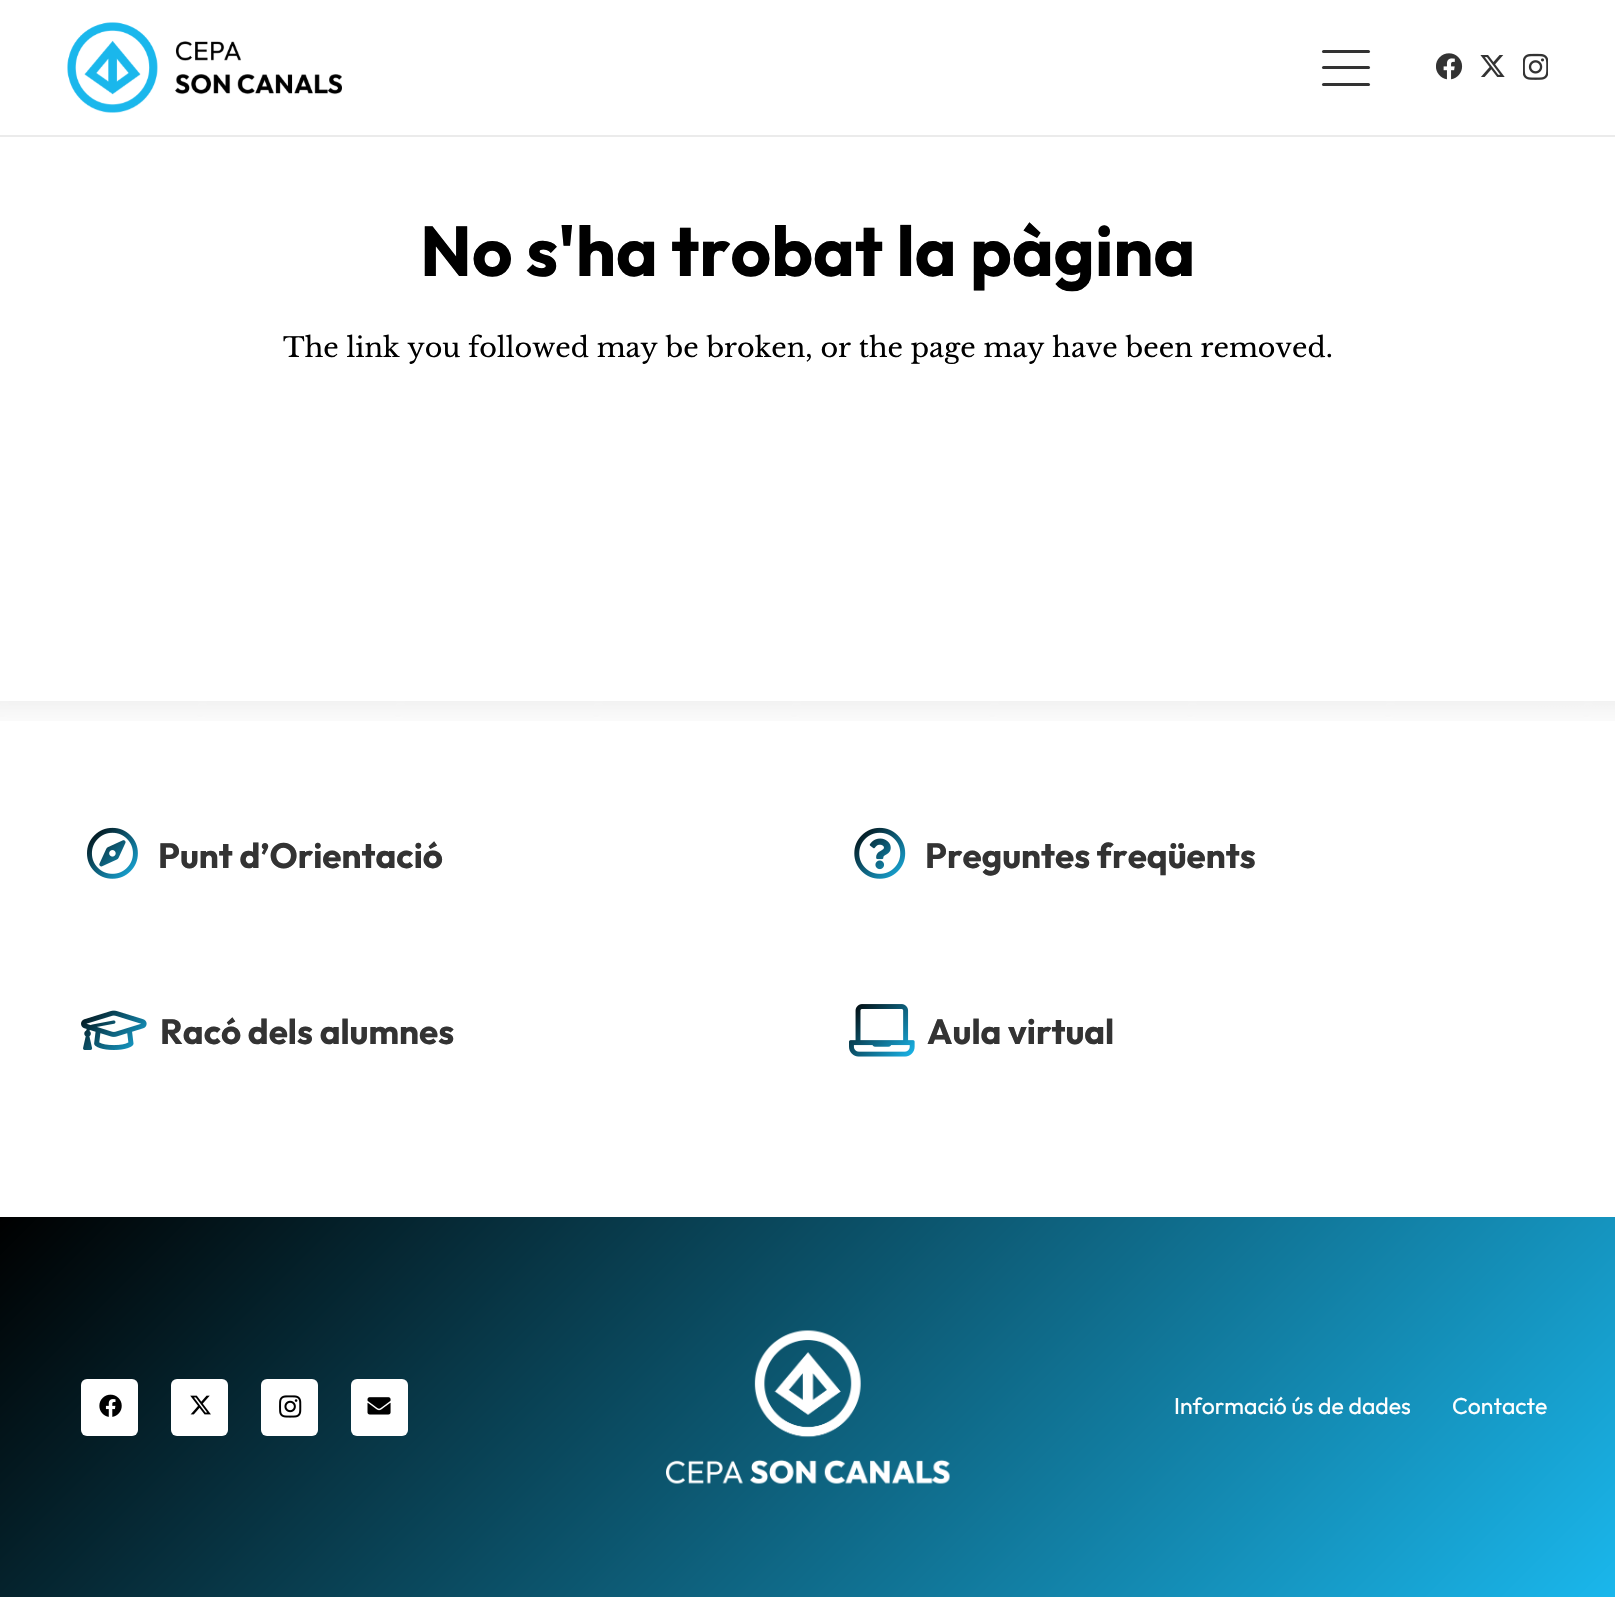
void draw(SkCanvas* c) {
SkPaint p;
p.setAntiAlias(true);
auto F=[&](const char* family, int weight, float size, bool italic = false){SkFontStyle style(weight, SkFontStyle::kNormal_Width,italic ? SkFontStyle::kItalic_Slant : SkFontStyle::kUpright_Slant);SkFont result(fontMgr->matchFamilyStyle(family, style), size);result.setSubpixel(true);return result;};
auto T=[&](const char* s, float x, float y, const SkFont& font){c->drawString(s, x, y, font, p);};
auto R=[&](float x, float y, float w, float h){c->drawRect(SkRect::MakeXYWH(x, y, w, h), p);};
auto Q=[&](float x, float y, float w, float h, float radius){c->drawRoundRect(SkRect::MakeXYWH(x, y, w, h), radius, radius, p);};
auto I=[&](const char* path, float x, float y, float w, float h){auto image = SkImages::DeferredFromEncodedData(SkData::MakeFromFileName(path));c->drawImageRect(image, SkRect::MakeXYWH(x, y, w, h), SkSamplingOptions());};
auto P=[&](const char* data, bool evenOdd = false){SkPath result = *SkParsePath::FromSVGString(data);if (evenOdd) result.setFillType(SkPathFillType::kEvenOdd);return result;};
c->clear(0xffffffff);
p.setColor(0xffebebeb);
c->drawPath(P("M0 135v2h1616v-135v133z"),p);
I("1.png",67,22,275,91);
p.setColor(0xff333333);
Q(1322,66,48,3,1.5);
Q(1322,50,48,3,1.5);
Q(1322,83,48,3,1.5);
I("2.png",1436,53,27,27);
I("3.png",1480,55,25,22);
I("4.png",1523,53,25,27);
auto f1 = F("Outfit",700,70.4);
p.setColor(0xff000000);
T("No s'ha trobat la pàgina",420,276,f1);
auto f2 = F("Libre Baskerville",400,27);
T("The link you followed may be broken, or the page may have been removed.",283,357,f2);
c->save();
c->clipRect(SkRect::MakeXYWH(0,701,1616,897));
c->clipPath(P("M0 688h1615v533h-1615zm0 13h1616v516h-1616z",true),true);
p.setMaskFilter(SkMaskFilter::MakeBlur(kNormal_SkBlurStyle, 2));
c->drawRect(SkRect::MakeXYWH(-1,695,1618,519),p);
p.setMaskFilter(nullptr);
c->restore();
I("5.png",0,701,1615,20);
I("6.png",87,827,51,52);
auto f3 = F("Outfit",700,35);
p.setColor(0xff333333);
T("Punt d’Orientació",158,868,f3);
I("7.png",854,827,52,52);
T("Preguntes freqüents",925,868,f3);
I("8.png",81,1010,66,40);
T("Racó dels alumnes",160,1044,f3);
I("9.png",849,1004,66,53);
T("Aula virtual",927,1044,f3);
{
const SkColor colors[] = {0xff000000,0xff1ab7ec};
const float stops[] = {0,1};
const SkPoint ends[] = {{309,908}, {1307,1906}};
p.setShader(SkGradientShader::MakeLinear(ends, colors, stops, 2, SkTileMode::kClamp));
p.setAlpha(255);
}
R(0,1217,1615,380);
p.setShader(nullptr);
p.setColor(0xffffffff);
Q(81,1379,57,57,6);
I("10.png",99,1394,23,23);
Q(171,1379,57,57,6);
I("11.png",190,1395,21,20);
Q(261,1379,57,57,6);
I("12.png",279,1395,23,23);
Q(351,1379,57,57,6);
I("13.png",367,1397,24,18);
I("14.png",666,1330,284,154);
auto f4 = F("Outfit",400,23);
T("Informació ús de dades",1174,1414,f4);
T("Contacte",1452,1414,f4);
}
